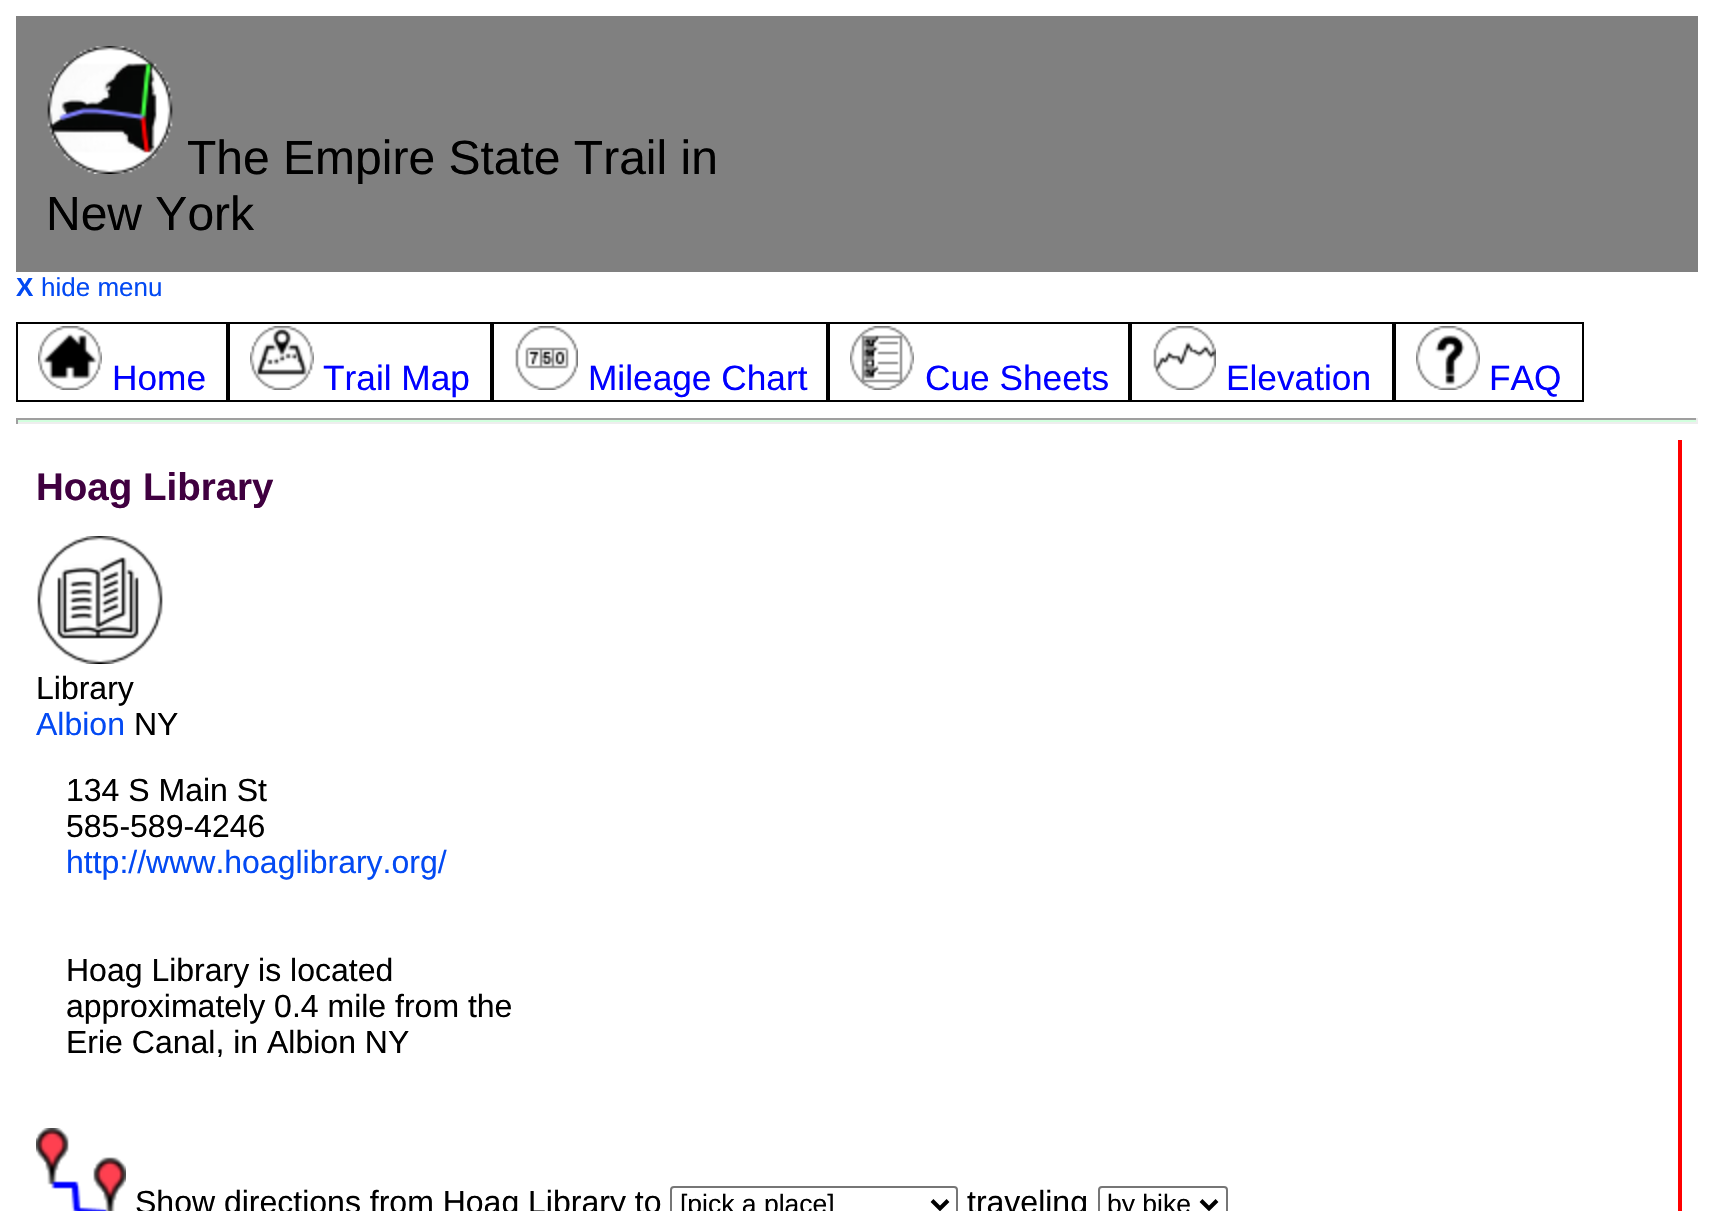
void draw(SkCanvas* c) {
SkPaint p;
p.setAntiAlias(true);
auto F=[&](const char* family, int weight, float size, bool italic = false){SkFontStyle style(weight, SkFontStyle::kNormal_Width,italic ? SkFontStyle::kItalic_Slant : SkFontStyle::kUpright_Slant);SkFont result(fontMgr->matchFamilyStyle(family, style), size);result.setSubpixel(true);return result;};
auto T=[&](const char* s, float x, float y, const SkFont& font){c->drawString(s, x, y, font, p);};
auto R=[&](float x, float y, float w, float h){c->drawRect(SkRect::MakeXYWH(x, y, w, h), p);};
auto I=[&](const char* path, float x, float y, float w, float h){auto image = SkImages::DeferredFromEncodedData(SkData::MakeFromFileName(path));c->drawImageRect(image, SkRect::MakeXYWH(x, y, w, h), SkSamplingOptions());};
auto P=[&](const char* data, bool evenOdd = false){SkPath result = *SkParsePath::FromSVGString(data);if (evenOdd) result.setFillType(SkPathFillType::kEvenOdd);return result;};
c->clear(0xffffffff);
p.setColor(0xff808080);
R(16,16,1682,256);
I("1.png",47,46,126,128);
auto f1 = F("Liberation Sans",400,48);
p.setColor(0xff000000);
T("The Empire State Trail in",187,174,f1);
T("New York",46,230,f1);
auto f2 = F("Liberation Sans",700,26);
p.setColor(0xff034af3);
T("X",16,296,f2);
auto f3 = F("Liberation Sans",400,26);
T("hide menu",41,296,f3);
p.setStroke(true);
p.setStrokeWidth(2);
p.setColor(0xff000000);
c->drawRect(SkRect::MakeXYWH(17,323,210,78),p);
I("2.png",38,326,64,64);
auto f4 = F("Liberation Sans",400,35.25);
p.setStroke(false);
p.setColor(0xff0000ff);
T("Home",112,390,f4);
p.setStroke(true);
p.setColor(0xff000000);
c->drawRect(SkRect::MakeXYWH(229,323,262,78),p);
I("3.png",250,326,64,64);
p.setStroke(false);
p.setColor(0xff0000ff);
T("Trail Map",323,390,f4);
p.setStroke(true);
p.setColor(0xff000000);
c->drawRect(SkRect::MakeXYWH(493,323,334,78),p);
I("4.png",515,326,63,64);
p.setStroke(false);
p.setColor(0xff0000ff);
T("Mileage Chart",588,390,f4);
p.setStroke(true);
p.setColor(0xff000000);
c->drawRect(SkRect::MakeXYWH(829,323,300,78),p);
I("5.png",850,326,64,64);
p.setStroke(false);
p.setColor(0xff0000ff);
T("Cue Sheets",925,390,f4);
p.setStroke(true);
p.setColor(0xff000000);
c->drawRect(SkRect::MakeXYWH(1131,323,262,78),p);
I("6.png",1153,326,63,64);
p.setStroke(false);
p.setColor(0xff0000ff);
T("Elevation",1226,390,f4);
p.setStroke(true);
p.setColor(0xff000000);
c->drawRect(SkRect::MakeXYWH(1395,323,188,78),p);
I("7.png",1416,326,64,64);
p.setStroke(false);
p.setColor(0xff0000ff);
T("FAQ",1489,390,f4);
p.setColor(0xffd2ffde);
R(16,420,1682,2);
p.setColor(0xff9f9f9f);
R(16,418,1682,2);
p.setColor(0xffeeeeee);
R(1696,418,2,6);
R(16,422,1682,2);
p.setColor(0xff9f9f9f);
R(16,418,2,6);
auto f5 = F("Liberation Sans",700,38.5);
p.setColor(0xff400040);
T("Hoag Library",36,500,f5);
I("8.png",37,536,126,128);
auto f6 = F("Liberation Sans",400,32);
p.setColor(0xff000000);
T("Library",36,699,f6);
p.setColor(0xff034af3);
T("Albion",36,735,f6);
p.setColor(0xff000000);
T("NY",134,735,f6);
T("134 S Main St",66,801,f6);
T("585-589-4246",66,837,f6);
p.setColor(0xff034af3);
T("http://www.hoaglibrary.org/",66,873,f6);
p.setColor(0xff000000);
T("Hoag Library is located",66,981,f6);
T("approximately 0.4 mile from the",66,1017,f6);
T("Erie Canal, in Albion NY",66,1053,f6);
I("9.png",36,1128,90,83);
T("Show directions from Hoag Library to",135,1213,f6);
p.setStroke(true);
p.setColor(0xff767676);
c->drawRoundRect(SkRect::MakeXYWH(671,1187,286,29),3,3,p);
p.setStrokeWidth(4);
p.setColor(0xff000000);
c->drawPath(P("M932 1200.5l8 8l8-8"),p);
auto f7 = F("Liberation Sans",400,26.5);
p.setStroke(false);
T("[pick a place]",680,1213,f7);
T("traveling",967,1213,f6);
p.setStroke(true);
p.setStrokeWidth(2);
p.setColor(0xff767676);
c->drawRoundRect(SkRect::MakeXYWH(1099,1187,128,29),3,3,p);
p.setStrokeWidth(4);
p.setColor(0xff000000);
c->drawPath(P("M1201 1200.5l8 8l8-8"),p);
p.setStroke(false);
T("by bike",1107,1213,f7);
p.setColor(0xffff0000);
R(1678,440,4,771);
}
